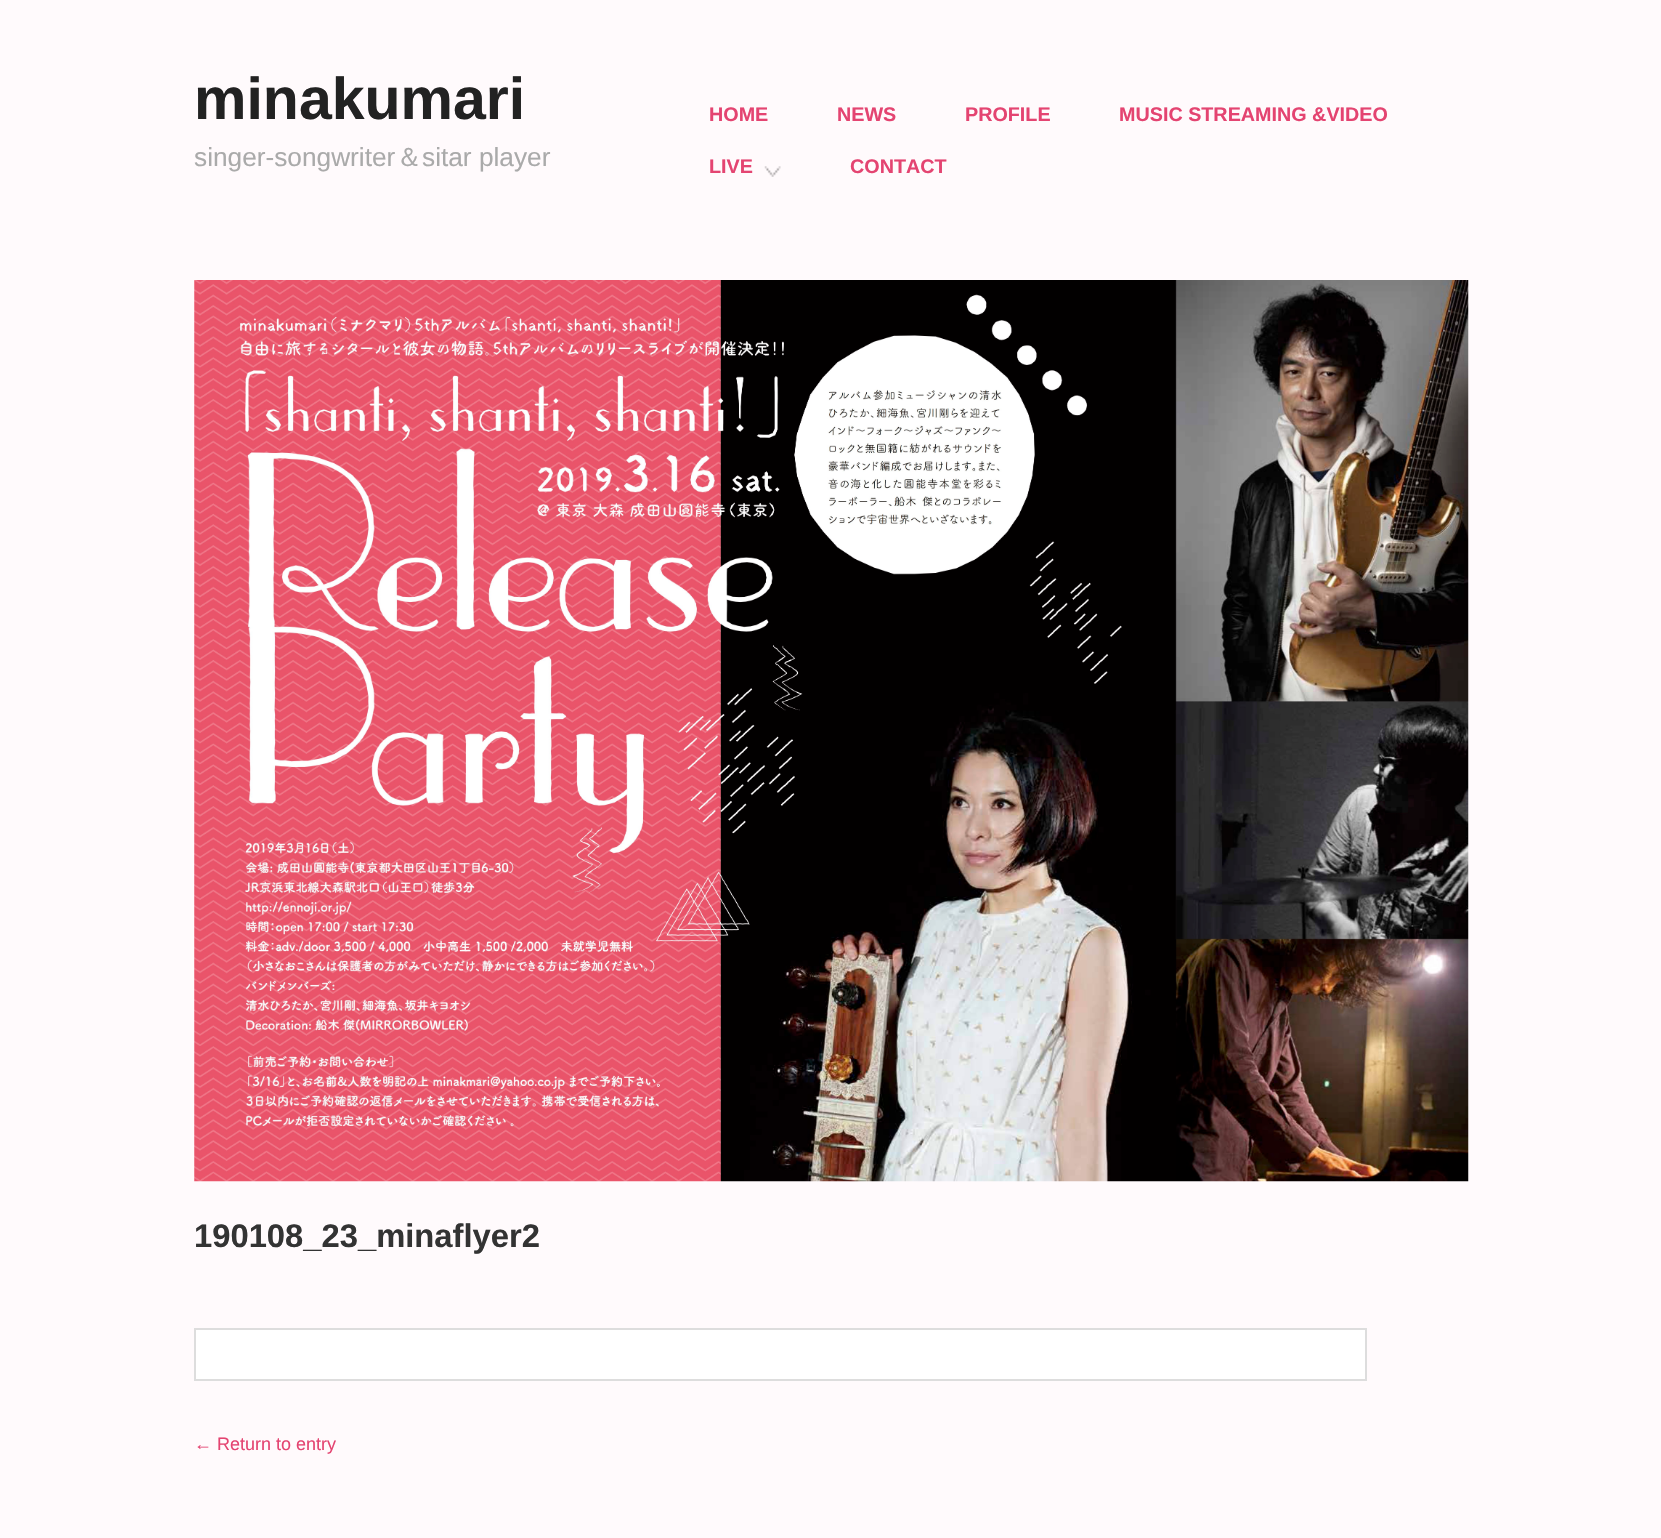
void draw(SkCanvas* c) {
SkPaint p;
p.setAntiAlias(true);
auto F=[&](const char* family, int weight, float size, bool italic = false){SkFontStyle style(weight, SkFontStyle::kNormal_Width,italic ? SkFontStyle::kItalic_Slant : SkFontStyle::kUpright_Slant);SkFont result(fontMgr->matchFamilyStyle(family, style), size);result.setSubpixel(true);return result;};
auto T=[&](const char* s, float x, float y, const SkFont& font){c->drawString(s, x, y, font, p);};
auto I=[&](const char* path, float x, float y, float w, float h){auto image = SkImages::DeferredFromEncodedData(SkData::MakeFromFileName(path));c->drawImageRect(image, SkRect::MakeXYWH(x, y, w, h), SkSamplingOptions());};
c->clear(0xfffffafc);
auto f1 = F("Liberation Sans",700,59);
p.setColor(0xff222222);
T("minakumari",194,119,f1);
auto f2 = F("Liberation Sans",400,26.25);
p.setColor(0xffaaaaaa);
T("singer-songwriter",194,166,f2);
auto f3 = F("WenQuanYi Zen Hei",500,26.25);
T("＆",396,166,f3);
T("sitar player",422,166,f2);
auto f4 = F("Liberation Sans",700,19.75);
p.setColor(0xffe44471);
T("HOME",709,121,f4);
T("NEWS",837,121,f4);
T("PROFILE",965,121,f4);
T("MUSIC STREAMING &VIDEO",1119,121,f4);
T("LIVE",709,173,f4);
I("1.png",764,166,17,11);
T("CONTACT",850,173,f4);
I("2.png",194,280,1275,902);
auto f5 = F("Liberation Sans",700,32.75);
p.setColor(0xff333333);
T("190108_23_minaflyer2",194,1247,f5);
p.setColor(0xffffffff);
c->drawRect(SkRect::MakeXYWH(195,1329,1171,51),p);
p.setStroke(true);
p.setStrokeWidth(2);
p.setColor(0xffdddddd);
c->drawRect(SkRect::MakeXYWH(195,1329,1171,51),p);
auto f6 = F("Liberation Sans",400,18);
p.setStroke(false);
p.setColor(0xffe44471);
T("← Return to entry",194,1450,f6);
}
